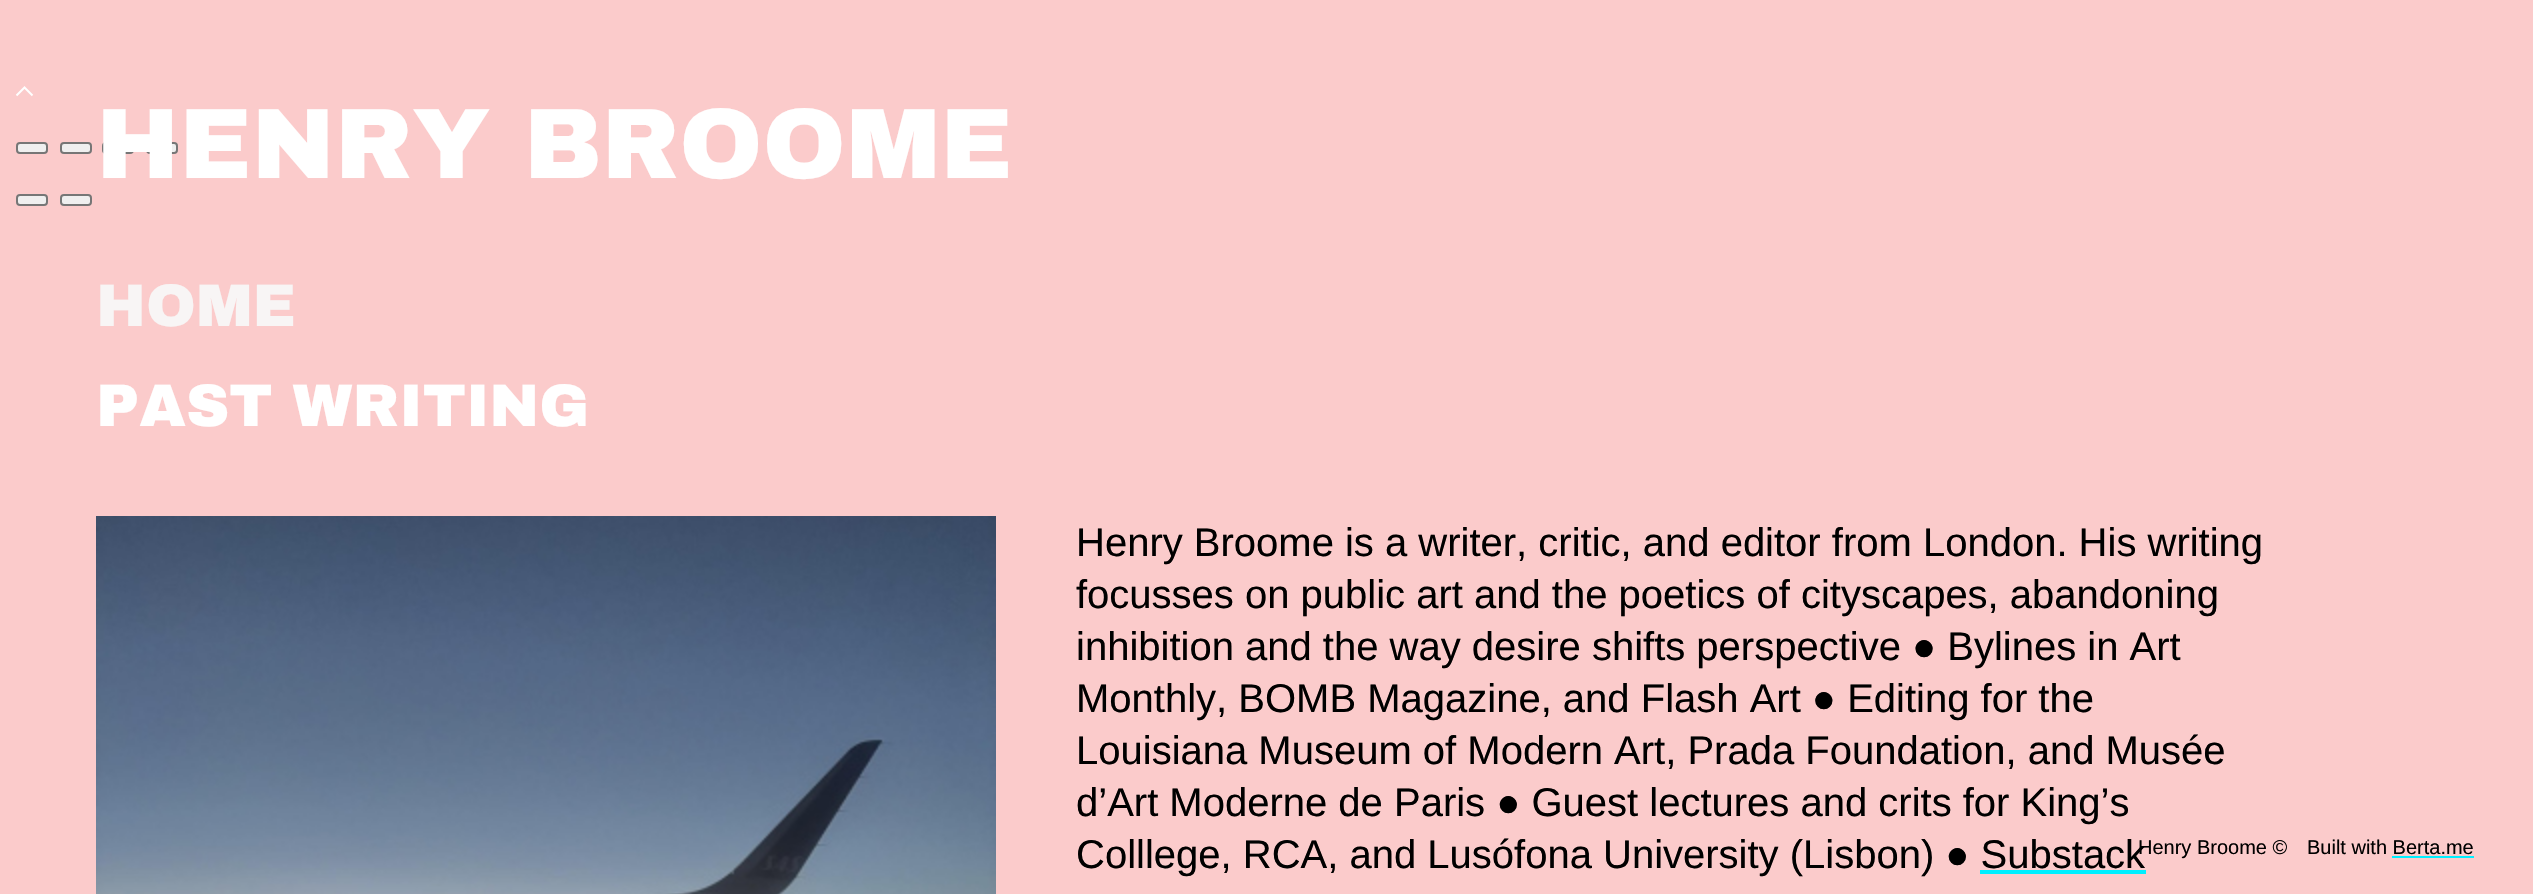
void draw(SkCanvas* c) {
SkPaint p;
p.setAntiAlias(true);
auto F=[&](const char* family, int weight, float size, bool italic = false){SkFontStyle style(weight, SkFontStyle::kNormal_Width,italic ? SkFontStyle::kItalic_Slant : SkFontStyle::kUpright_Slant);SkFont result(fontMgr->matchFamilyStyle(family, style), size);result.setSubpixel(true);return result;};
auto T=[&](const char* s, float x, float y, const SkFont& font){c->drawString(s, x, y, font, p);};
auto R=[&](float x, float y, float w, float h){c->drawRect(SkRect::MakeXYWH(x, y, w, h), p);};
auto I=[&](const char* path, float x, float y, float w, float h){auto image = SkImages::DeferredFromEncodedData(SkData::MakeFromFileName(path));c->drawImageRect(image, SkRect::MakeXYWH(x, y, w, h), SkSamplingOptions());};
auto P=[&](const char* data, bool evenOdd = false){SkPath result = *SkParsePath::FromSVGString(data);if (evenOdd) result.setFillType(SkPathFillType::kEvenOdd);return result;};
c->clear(0xfffbcbcb);
p.setStroke(true);
p.setStrokeWidth(2);
p.setColor(0xffffffff);
c->drawPath(P("M32.5 95.5l-8-8l-8 8"),p);
p.setStroke(false);
p.setColor(0xffefefef);
c->drawRoundRect(SkRect::MakeXYWH(17,143,30,10),3,3,p);
p.setStroke(true);
p.setColor(0xff767676);
c->drawRoundRect(SkRect::MakeXYWH(17,143,30,10),3,3,p);
p.setStroke(false);
p.setColor(0xffefefef);
c->drawRoundRect(SkRect::MakeXYWH(61,143,30,10),3,3,p);
p.setStroke(true);
p.setColor(0xff767676);
c->drawRoundRect(SkRect::MakeXYWH(61,143,30,10),3,3,p);
p.setStroke(false);
p.setColor(0xffefefef);
c->drawRoundRect(SkRect::MakeXYWH(103,143,30,10),3,3,p);
p.setStroke(true);
p.setColor(0xff767676);
c->drawRoundRect(SkRect::MakeXYWH(103,143,30,10),3,3,p);
p.setStroke(false);
p.setColor(0xffefefef);
c->drawRoundRect(SkRect::MakeXYWH(147,143,30,10),3,3,p);
p.setStroke(true);
p.setColor(0xff767676);
c->drawRoundRect(SkRect::MakeXYWH(147,143,30,10),3,3,p);
p.setStroke(false);
p.setColor(0xffefefef);
c->drawRoundRect(SkRect::MakeXYWH(17,195,30,10),3,3,p);
p.setStroke(true);
p.setColor(0xff767676);
c->drawRoundRect(SkRect::MakeXYWH(17,195,30,10),3,3,p);
p.setStroke(false);
p.setColor(0xffefefef);
c->drawRoundRect(SkRect::MakeXYWH(61,195,30,10),3,3,p);
p.setStroke(true);
p.setColor(0xff767676);
c->drawRoundRect(SkRect::MakeXYWH(61,195,30,10),3,3,p);
auto f1 = F("Archivo Black",900,100);
p.setStroke(false);
p.setColor(0xffffffff);
T("HENRY BROOME",96,178,f1);
auto f2 = F("Archivo Black",900,60);
p.setColor(0xfff8f5f5);
T("HOME",96,326,f2);
p.setColor(0xffffffff);
T("PAST WRITING",96,426,f2);
I("1.png",96,516,900,378);
auto f3 = F("Liberation Sans",400,40);
p.setColor(0xff000000);
T("Henry Broome is a writer, critic, and editor from London. His writing",1076,556,f3);
T("focusses on public art and the poetics of cityscapes, abandoning",1076,608,f3);
T("inhibition and the way desire shifts perspective ● Bylines in Art",1076,660,f3);
T("Monthly, BOMB Magazine, and Flash Art ● Editing for the",1076,712,f3);
T("Louisiana Museum of Modern Art, Prada Foundation, and Musée",1076,764,f3);
T("d’Art Moderne de Paris ● Guest lectures and crits for King’s",1076,816,f3);
T("Colllege, RCA, and Lusófona University (Lisbon) ● Substack",1076,868,f3);
p.setColor(0xff00efff);
R(1980,870,166,4);
auto f4 = F("Liberation Sans",400,20);
p.setColor(0xff000000);
T("Henry Broome ©",2138,854,f4);
T("Built with Berta.me",2307,854,f4);
p.setColor(0xff00efff);
R(2392,856,82,2);
}
